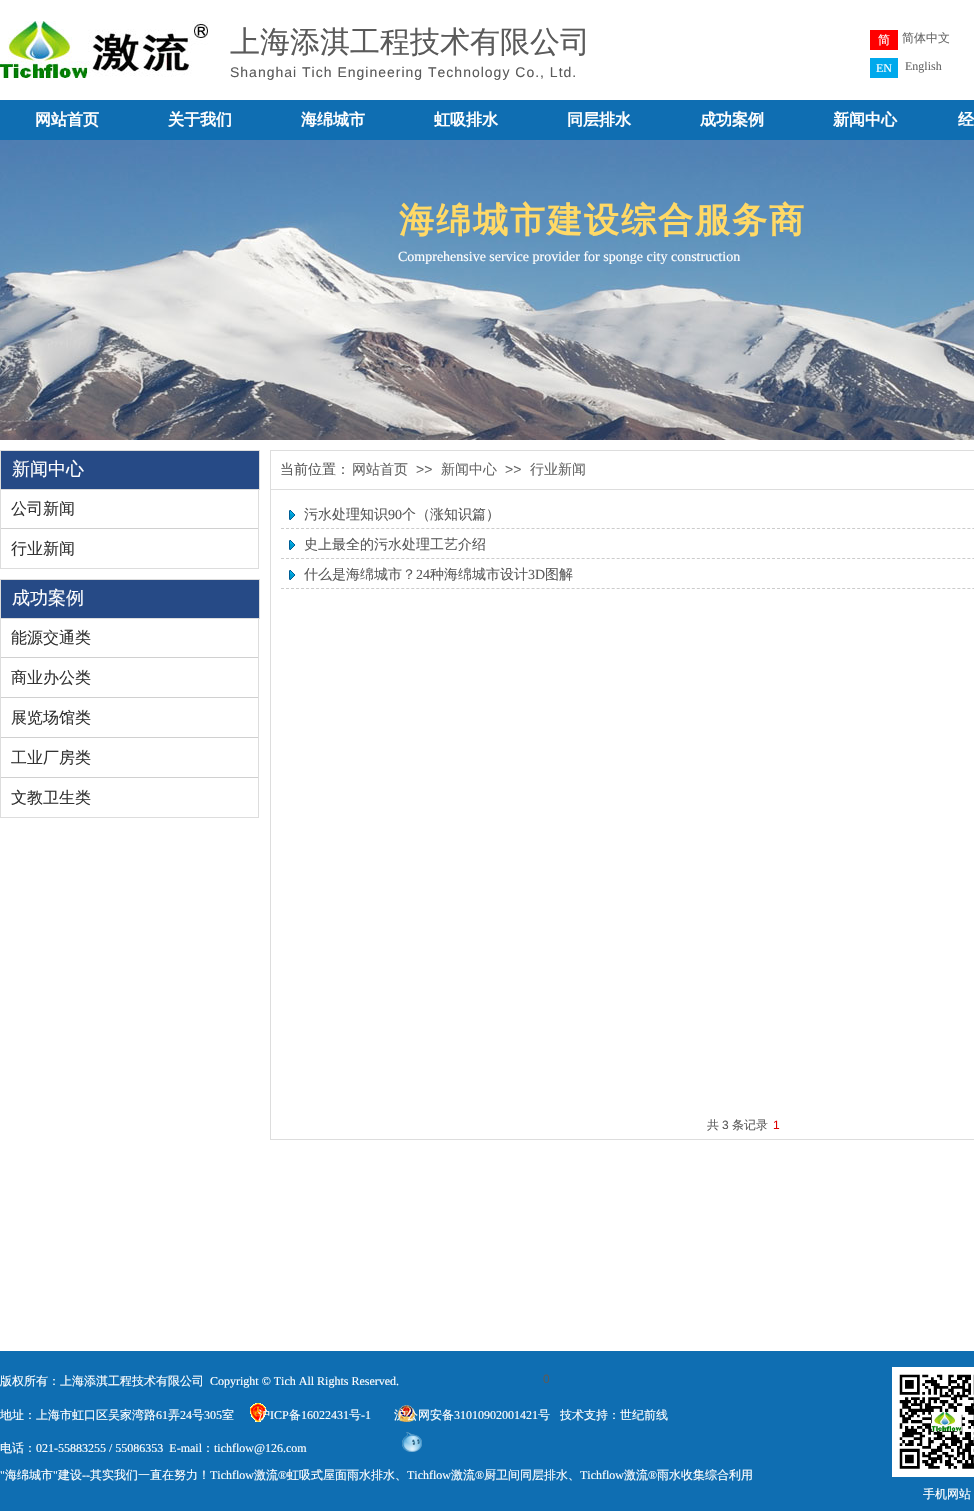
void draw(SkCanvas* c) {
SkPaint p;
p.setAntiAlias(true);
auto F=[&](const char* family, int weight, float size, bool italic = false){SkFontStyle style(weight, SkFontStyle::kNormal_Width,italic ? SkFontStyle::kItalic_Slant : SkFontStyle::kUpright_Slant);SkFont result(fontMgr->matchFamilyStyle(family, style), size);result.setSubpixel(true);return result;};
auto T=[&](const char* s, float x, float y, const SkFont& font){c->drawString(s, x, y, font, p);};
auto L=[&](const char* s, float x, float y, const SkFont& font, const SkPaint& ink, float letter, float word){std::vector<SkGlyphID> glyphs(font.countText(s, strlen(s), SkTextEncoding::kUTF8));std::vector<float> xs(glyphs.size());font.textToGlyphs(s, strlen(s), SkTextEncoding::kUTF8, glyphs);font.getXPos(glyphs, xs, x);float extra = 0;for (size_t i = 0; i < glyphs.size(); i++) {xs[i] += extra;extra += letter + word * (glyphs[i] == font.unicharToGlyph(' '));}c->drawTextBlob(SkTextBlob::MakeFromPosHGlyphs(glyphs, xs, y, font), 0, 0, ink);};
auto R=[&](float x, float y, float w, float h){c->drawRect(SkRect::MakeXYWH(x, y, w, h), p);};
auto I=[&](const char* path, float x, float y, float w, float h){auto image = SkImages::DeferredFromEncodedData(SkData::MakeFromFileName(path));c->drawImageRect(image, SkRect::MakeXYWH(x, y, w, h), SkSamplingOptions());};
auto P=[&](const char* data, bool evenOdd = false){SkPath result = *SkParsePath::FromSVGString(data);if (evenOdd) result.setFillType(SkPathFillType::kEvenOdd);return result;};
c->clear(0xffffffff);
I("1.png",0,21,208,57);
auto f1 = F("WenQuanYi Zen Hei",500,30);
p.setColor(0xff5a5a5a);
T("上海添淇工程技术有限公司",230,52,f1);
auto f2 = F("Liberation Sans",400,14);
L("Shanghai Tich Engineering Technology Co., Ltd.",230,77,f2,p,1,0);
p.setColor(0xfffe0000);
R(870,30,28,20);
auto f3 = F("WenQuanYi Zen Hei",500,12);
p.setColor(0xffffffff);
T("简",878,44,f3);
p.setColor(0xff666666);
T("简体中文",902,42,f3);
p.setColor(0xff00a9ec);
R(870,58,28,20);
auto f4 = F("Liberation Serif",400,12);
p.setColor(0xffffffff);
T("EN",876,72,f4);
p.setColor(0xff666666);
T("English",905,70,f4);
p.setColor(0xff0f6eb2);
R(0,100,974,40);
auto f5 = F("WenQuanYi Zen Hei",700,16);
p.setColor(0xffffffff);
T("网站首页",35,125,f5);
T("关于我们",168,125,f5);
T("海绵城市",301,125,f5);
T("虹吸排水",434,125,f5);
T("同层排水",567,125,f5);
T("成功案例",700,125,f5);
T("新闻中心",833,125,f5);
T("经",958,125,f5);
I("2.png",0,140,974,300);
auto f6 = F("WenQuanYi Zen Hei",700,35);
p.setColor(0xffffd966);
L("海绵城市建设综合服务商",399,232,f6,p,2,0);
auto f7 = F("Liberation Serif",400,14);
p.setColor(0xffffffff);
T("Comprehensive service provider for sponge city construction",398,261,f7);
p.setColor(0xff264a86);
c->drawRect(SkRect::MakeXYWH(.5,450.5,259,39),p);
p.setStroke(true);
p.setStrokeWidth(1);
p.setColor(0xffdddddd);
c->drawRect(SkRect::MakeXYWH(.5,450.5,259,39),p);
auto f8 = F("WenQuanYi Zen Hei",500,18);
p.setStroke(false);
p.setColor(0xffffffff);
T("新闻中心",12,475,f8);
p.setStroke(true);
p.setColor(0xffdddddd);
c->drawRect(SkRect::MakeXYWH(270.5,450.5,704,39),p);
auto f9 = F("WenQuanYi Zen Hei",500,14);
p.setStroke(false);
p.setColor(0xff5a5a5a);
T("当前位置：",280,474,f9);
p.setColor(0xff666666);
T("网站首页",352,474,f9);
T(">>",416,474,f2);
T("新闻中心",441,474,f9);
T(">>",505,474,f2);
T("行业新闻",530,474,f9);
p.setColor(0xffdddddd);
R(258,489,1,80);
R(0,568,259,1);
R(0,489,1,80);
p.setColor(0xffd0d0d0);
R(1,528,257,1);
auto f10 = F("WenQuanYi Zen Hei",500,16);
p.setColor(0xff333333);
T("公司新闻",11,514,f10);
T("行业新闻",11,554,f10);
p.setColor(0xffdddddd);
R(270,1139,704,1);
R(270,489,1,651);
I("3.png",289,510,6,10);
p.setColor(0xff5a5a5a);
T("污水处理知识",304,519,f9);
T("90",388,519,f7);
T("个（涨知识篇）",402,519,f9);
p.setStroke(true);
p.setColor(0xffcccccc);
p.setPathEffect(SkDashPathEffect::Make({{3,2.01f}}, 0));
c->drawPath(P("M281 528.5h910"),p);
p.setPathEffect(nullptr);
I("3.png",289,540,6,10);
p.setStroke(false);
p.setColor(0xff5a5a5a);
T("史上最全的污水处理工艺介绍",304,549,f9);
p.setStroke(true);
p.setColor(0xffcccccc);
p.setPathEffect(SkDashPathEffect::Make({{3,2.01f}}, 0));
c->drawPath(P("M281 558.5h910"),p);
p.setPathEffect(nullptr);
I("3.png",289,570,6,10);
p.setStroke(false);
p.setColor(0xff5a5a5a);
T("什么是海绵城市？",304,579,f9);
T("24",416,579,f7);
T("种海绵城市设计",430,579,f9);
T("3D",528,579,f7);
T("图解",545,579,f9);
p.setStroke(true);
p.setColor(0xffcccccc);
p.setPathEffect(SkDashPathEffect::Make({{3,2.01f}}, 0));
c->drawPath(P("M281 588.5h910"),p);
p.setPathEffect(nullptr);
p.setStroke(false);
p.setColor(0xff5a5a5a);
T("共",707,1129,f3);
auto f11 = F("Liberation Sans",400,12);
T("3",722,1129,f11);
T("条记录",732,1129,f3);
p.setColor(0xffdd0000);
T("1",773,1129,f11);
p.setColor(0xff264a86);
c->drawRect(SkRect::MakeXYWH(.5,579.5,259,39),p);
p.setStroke(true);
p.setColor(0xffdddddd);
c->drawRect(SkRect::MakeXYWH(.5,579.5,259,39),p);
p.setStroke(false);
p.setColor(0xffffffff);
T("成功案例",12,604,f8);
p.setColor(0xffdddddd);
R(258,618,1,200);
R(0,817,259,1);
R(0,618,1,200);
p.setColor(0xffd0d0d0);
R(1,657,257,1);
p.setColor(0xff333333);
T("能源交通类",11,643,f10);
p.setColor(0xffd0d0d0);
R(1,697,257,1);
p.setColor(0xff333333);
T("商业办公类",11,683,f10);
p.setColor(0xffd0d0d0);
R(1,737,257,1);
p.setColor(0xff333333);
T("展览场馆类",11,723,f10);
p.setColor(0xffd0d0d0);
R(1,777,257,1);
p.setColor(0xff333333);
T("工业厂房类",11,763,f10);
T("文教卫生类",11,803,f10);
p.setColor(0xff0f6eb2);
R(0,1351,974,160);
p.setColor(0xff5a5a5a);
T("0",543,1383,f11);
p.setColor(0xffffffff);
R(892,1367,82,110);
I("4.png",899,1374,75,95);
T("版权所有：上海添淇工程技术有限公司",0,1385,f3);
T("Copyright © Tich All Rights Reserved.",210,1385,f4);
T("地址：上海市虹口区吴家湾路",0,1419,f3);
T("61",156,1419,f4);
T("弄",168,1419,f3);
T("24",180,1419,f4);
T("号",192,1419,f3);
T("305",204,1419,f4);
T("室",222,1419,f3);
I("6.png",250,1403,16,19);
T("沪",258,1419,f3);
T("ICP",270,1419,f4);
T("备",289,1419,f3);
T("16022431",301,1419,f4);
T("号",349,1419,f3);
T("-1",361,1419,f4);
I("7.png",398,1405,17,17);
T("沪公网安备",394,1419,f3);
T("31010902001421",454,1419,f4);
T("号",538,1419,f3);
T("技术支持：世纪前线",560,1419,f3);
T("电话：",0,1452,f3);
T("021-55883255 / 55086353  E-mail",36,1452,f4);
T("：",202,1452,f3);
T("tichflow@126.com",214,1452,f4);
I("5.png",402,1432,20,20);
T("\"",0,1479,f4);
T("海绵城市",5,1479,f3);
T("\"",53,1479,f4);
T("建设",58,1479,f3);
T("--",82,1479,f4);
T("其实我们一直在努力！",90,1479,f3);
T("Tichflow",210,1479,f4);
T("激流",254,1479,f3);
T("®",278,1479,f4);
T("虹吸式屋面雨水排水、",287,1479,f3);
T("Tichflow",407,1479,f4);
T("激流",451,1479,f3);
T("®",475,1479,f4);
T("厨卫间同层排水、",484,1479,f3);
T("Tichflow",580,1479,f4);
T("激流",624,1479,f3);
T("®",648,1479,f4);
T("雨水收集综合利用",657,1479,f3);
T("手机网站",923,1498,f3);
}
